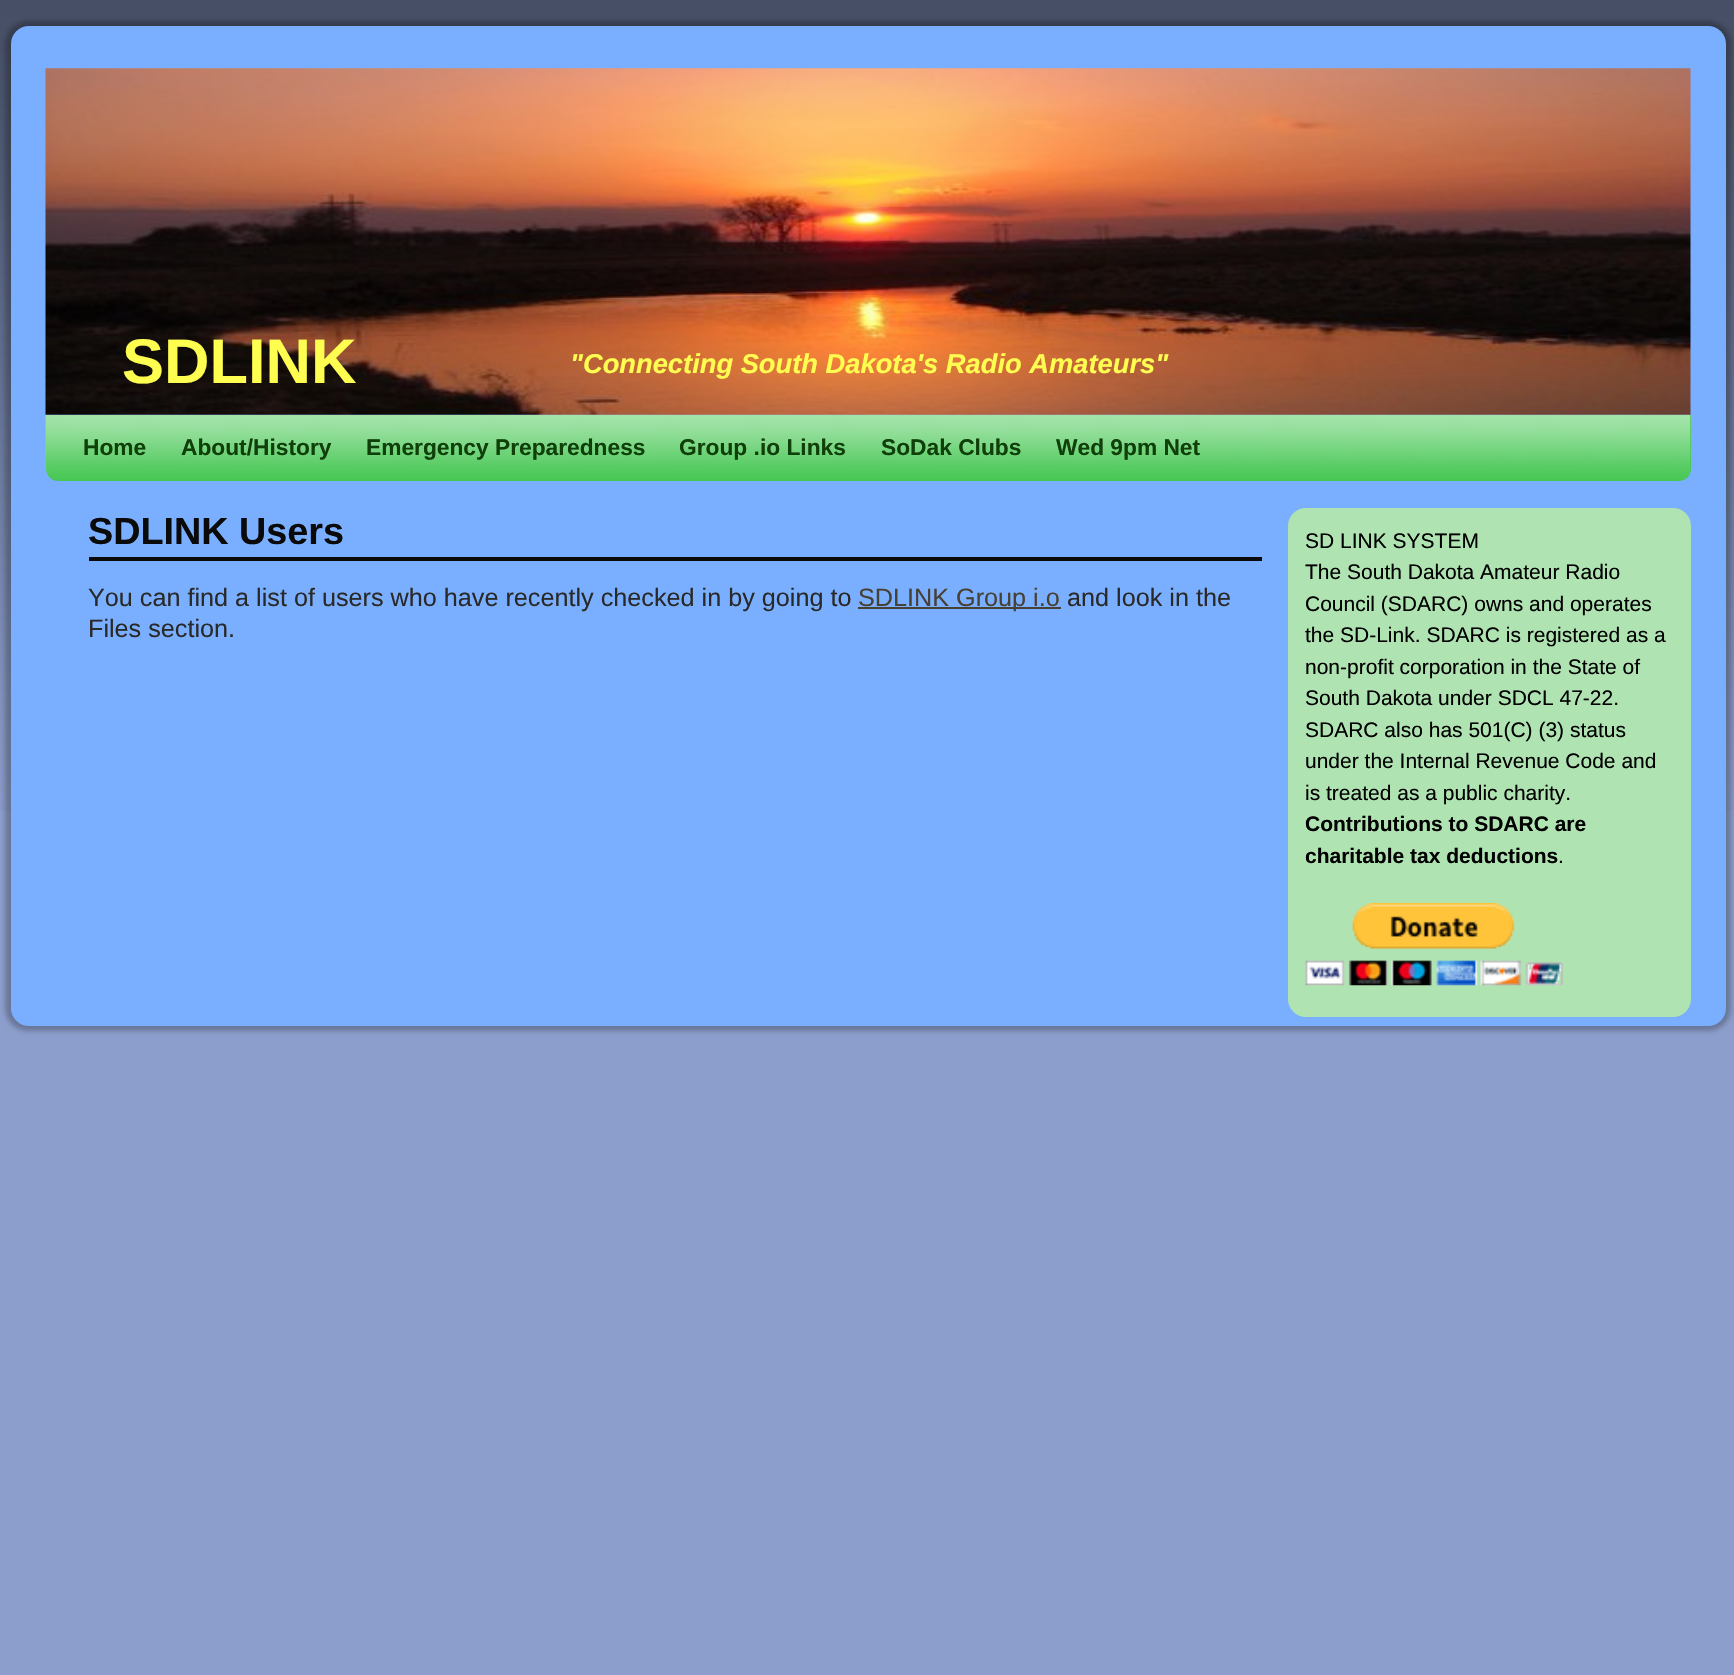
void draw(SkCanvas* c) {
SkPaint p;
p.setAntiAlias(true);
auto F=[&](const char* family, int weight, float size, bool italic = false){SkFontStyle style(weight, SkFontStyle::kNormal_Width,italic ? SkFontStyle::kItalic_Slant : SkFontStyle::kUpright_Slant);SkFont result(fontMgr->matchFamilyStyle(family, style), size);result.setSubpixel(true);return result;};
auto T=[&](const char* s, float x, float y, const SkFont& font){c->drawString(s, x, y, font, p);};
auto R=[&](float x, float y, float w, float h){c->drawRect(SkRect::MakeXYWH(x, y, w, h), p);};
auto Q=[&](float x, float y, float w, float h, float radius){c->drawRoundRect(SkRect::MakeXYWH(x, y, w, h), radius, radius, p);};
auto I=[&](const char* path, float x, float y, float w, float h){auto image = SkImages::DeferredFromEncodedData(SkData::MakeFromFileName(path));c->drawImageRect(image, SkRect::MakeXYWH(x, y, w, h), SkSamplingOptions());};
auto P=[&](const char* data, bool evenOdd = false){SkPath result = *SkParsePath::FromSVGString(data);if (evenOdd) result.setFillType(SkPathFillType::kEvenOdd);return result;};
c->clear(0xff8c9ecc);
I("1.png",0,0,1734,811);
p.setColor(0x40000000);
p.setMaskFilter(SkMaskFilter::MakeBlur(kNormal_SkBlurStyle, 2.5));
c->drawRoundRect(SkRect::MakeXYWH(5,21,1726,1010),23,23,p);
p.setMaskFilter(nullptr);
p.setColor(0xff7aafff);
Q(11,26,1715,1000,18);
I("2.png",45,68,1646,347);
auto f1 = F("Liberation Sans",700,63);
p.setColor(0xfffefe51);
T("SDLINK",122,383,f1);
auto f2 = F("Liberation Sans",700,27.3,true);
T("\"Connecting South Dakota's Radio Amateurs\"",570,373,f2);
p.setColor(0xff46c753);
c->drawPath(P("M46 415h1645v54c0 6.5-5.5 12-12 12h-1621c-6.5 0-12-5.5-12-12z"),p);
I("3.png",45,414,1646,65);
auto f3 = F("Liberation Sans",700,22.75);
p.setColor(0xff10400a);
T("Home",83,455,f3);
T("About/History",181,455,f3);
T("Emergency Preparedness",366,455,f3);
T("Group .io Links",679,455,f3);
T("SoDak Clubs",881,455,f3);
T("Wed 9pm Net",1056,455,f3);
p.setColor(0xff0a0a0a);
R(89,557,1173,4);
auto f4 = F("Liberation Sans",700,37.75);
T("SDLINK Users",88,544,f4);
auto f5 = F("Liberation Sans",400,25.2);
p.setColor(0xff292929);
T("You can find a list of users who have recently checked in by going to",88,606,f5);
p.setColor(0xff474134);
R(858,607,203,2);
T("SDLINK Group i.o",858,606,f5);
p.setColor(0xff292929);
T("and look in the",1067,606,f5);
T("Files section.",88,637,f5);
p.setColor(0xffafe3b2);
Q(1288,508,403,509,18);
auto f6 = F("Liberation Sans",400,21);
p.setColor(0xff000000);
T("SD LINK SYSTEM",1305,548,f6);
T("The South Dakota Amateur Radio",1305,579,f6);
T("Council (SDARC) owns and operates",1305,611,f6);
T("the SD-Link. SDARC is registered as a",1305,642,f6);
T("non-profit corporation in the State of",1305,674,f6);
T("South Dakota under SDCL 47-22.",1305,705,f6);
T("SDARC also has 501(C) (3) status",1305,737,f6);
T("under the Internal Revenue Code and",1305,768,f6);
T("is treated as a public charity.",1305,800,f6);
auto f7 = F("Liberation Sans",700,21);
T("Contributions to SDARC are",1305,831,f7);
T("charitable tax deductions",1305,863,f7);
T(".",1558,863,f6);
I("4.png",1305,903,258,83);
}
